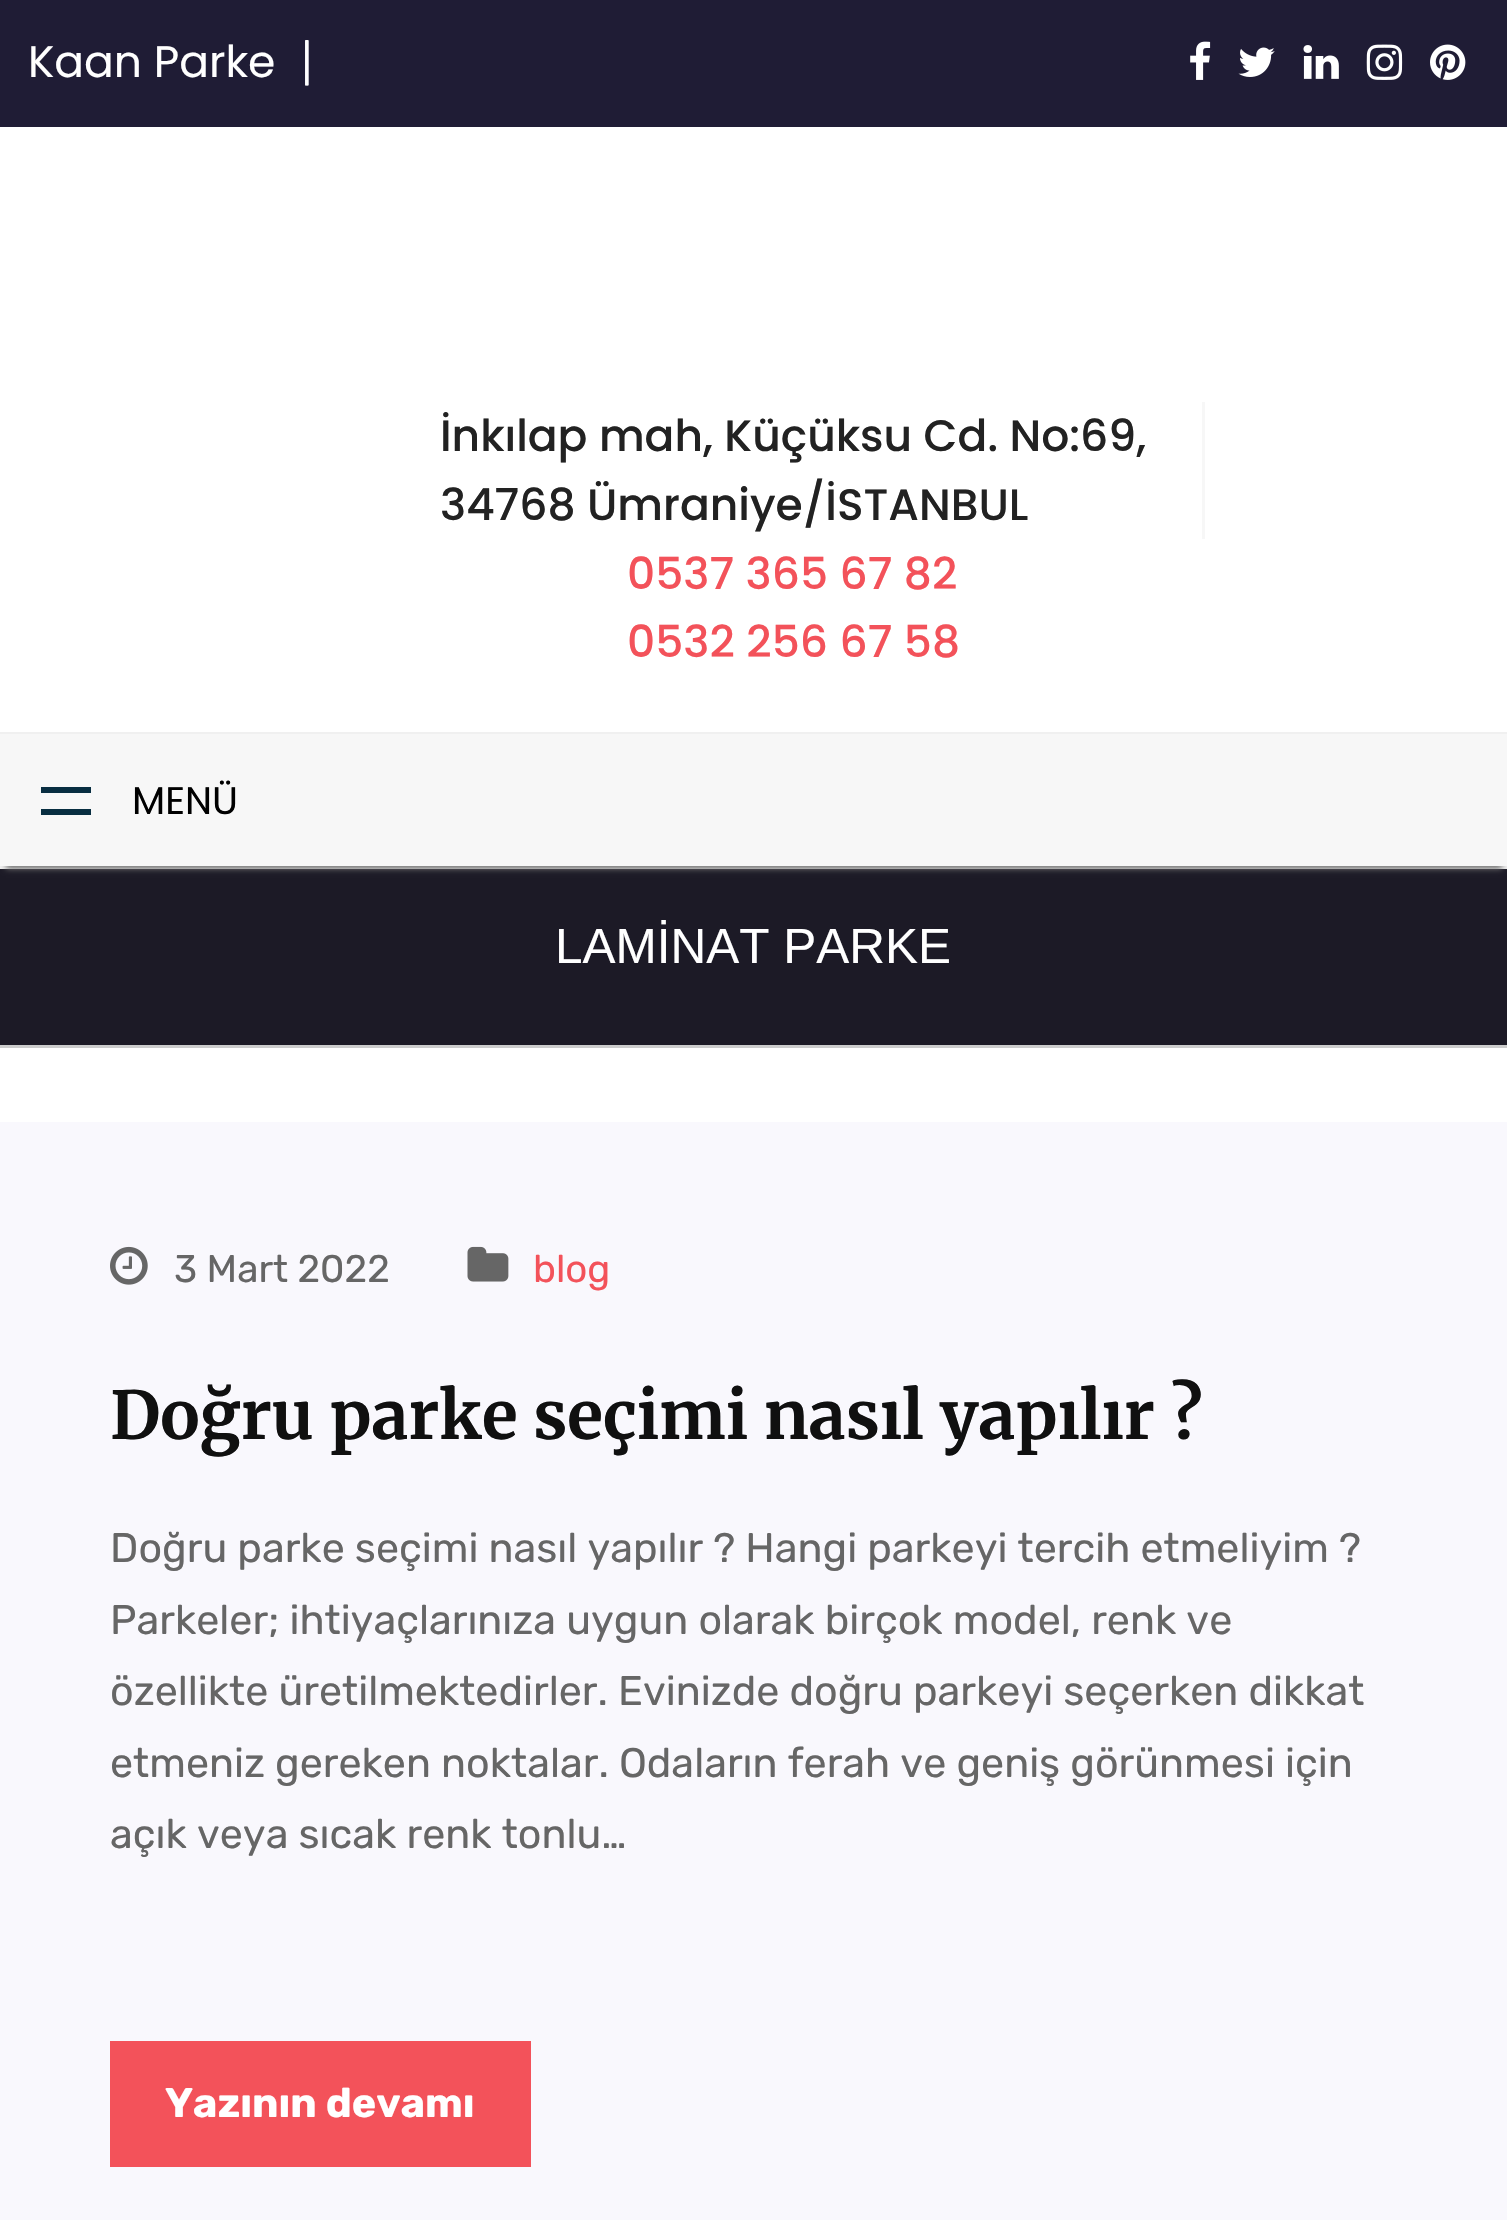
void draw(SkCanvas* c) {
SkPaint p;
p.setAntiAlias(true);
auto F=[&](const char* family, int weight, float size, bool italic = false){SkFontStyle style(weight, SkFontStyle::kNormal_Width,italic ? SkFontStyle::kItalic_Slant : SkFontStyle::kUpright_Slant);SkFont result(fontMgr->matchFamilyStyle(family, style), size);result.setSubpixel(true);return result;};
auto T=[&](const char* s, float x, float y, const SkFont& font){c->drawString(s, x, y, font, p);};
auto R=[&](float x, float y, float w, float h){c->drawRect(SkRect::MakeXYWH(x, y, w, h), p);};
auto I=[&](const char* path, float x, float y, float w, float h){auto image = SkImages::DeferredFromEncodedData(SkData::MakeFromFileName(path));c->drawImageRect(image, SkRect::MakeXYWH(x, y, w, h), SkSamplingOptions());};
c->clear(0xffffffff);
p.setColor(0xff1f1c35);
R(0,0,1507,127);
auto f1 = F("Poppins",400,44);
p.setColor(0xffffffff);
T("Kaan Parke",28,77,f1);
auto f2 = F("Rubik",400,41.25);
T("|",302,77,f2);
I("1.png",1190,41,21,39);
I("2.png",1238,47,37,30);
I("3.png",1303,45,36,34);
I("4.png",1366,44,37,36);
I("5.png",1430,44,36,36);
p.setColor(0xfff7f7f7);
R(1202,402,3,137);
auto f3 = F("Poppins",500,44);
p.setColor(0xff222222);
T("İnkılap mah, Küçüksu Cd. No:69,",440,451,f3);
T("34768 Ümraniye/İSTANBUL",440,520,f3);
p.setColor(0xfff3525a);
T("0537 365 67 82",627,589,f3);
T("0532 256 67 58",627,657,f3);
p.setColor(0xfff0f0f0);
R(0,732,1507,2);
R(0,866,1507,3);
p.setColor(0xff1c1a26);
R(0,869,1507,176);
p.setColor(0xff717171);
p.setMaskFilter(SkMaskFilter::MakeBlur(kNormal_SkBlurStyle, 3));
c->drawRect(SkRect::MakeXYWH(6,748,1496,121),p);
p.setMaskFilter(nullptr);
p.setColor(0xfff7f7f7);
R(0,734,1507,132);
p.setColor(0xff082e41);
R(41,787,50,6);
R(41,809,50,6);
auto f4 = F("Poppins",400,38.5);
p.setColor(0xff000000);
T("MENÜ",132,814,f4);
p.setColor(0xffcccccc);
R(0,1045,1507,3);
auto f5 = F("Liberation Sans",400,49.5);
p.setColor(0xffffffff);
T("LAMİNAT PARKE",555,963,f5);
p.setColor(0xfff9f8fd);
R(0,1122,1507,1098);
I("6.png",110,1246,38,39);
auto f6 = F("Rubik",400,38.5);
p.setColor(0xff666666);
T("3 Mart 2022",174,1282,f6);
I("7.png",467,1246,42,36);
p.setColor(0xfff3525a);
T("blog",533,1282,f6);
auto f7 = F("Merriweather",700,66);
p.setColor(0xff101010);
T("Doğru parke seçimi nasıl yapılır ?",110,1439,f7);
p.setColor(0xff666666);
T("Doğru parke seçimi nasıl yapılır ? Hangi parkeyi tercih etmeliyim ?",110,1562,f2);
T("Parkeler; ihtiyaçlarınıza uygun olarak birçok model, renk ve",110,1634,f2);
T("özellikte üretilmektedirler. Evinizde doğru parkeyi seçerken dikkat",110,1705,f2);
T("etmeniz gereken noktalar. Odaların ferah ve geniş görünmesi için",110,1777,f2);
T("açık veya sıcak renk tonlu…",110,1848,f2);
p.setColor(0xfff3525a);
R(110,2041,421,126);
auto f8 = F("Rubik",700,41.25);
p.setColor(0xffffffff);
T("Yazının devamı",165,2117,f8);
}
